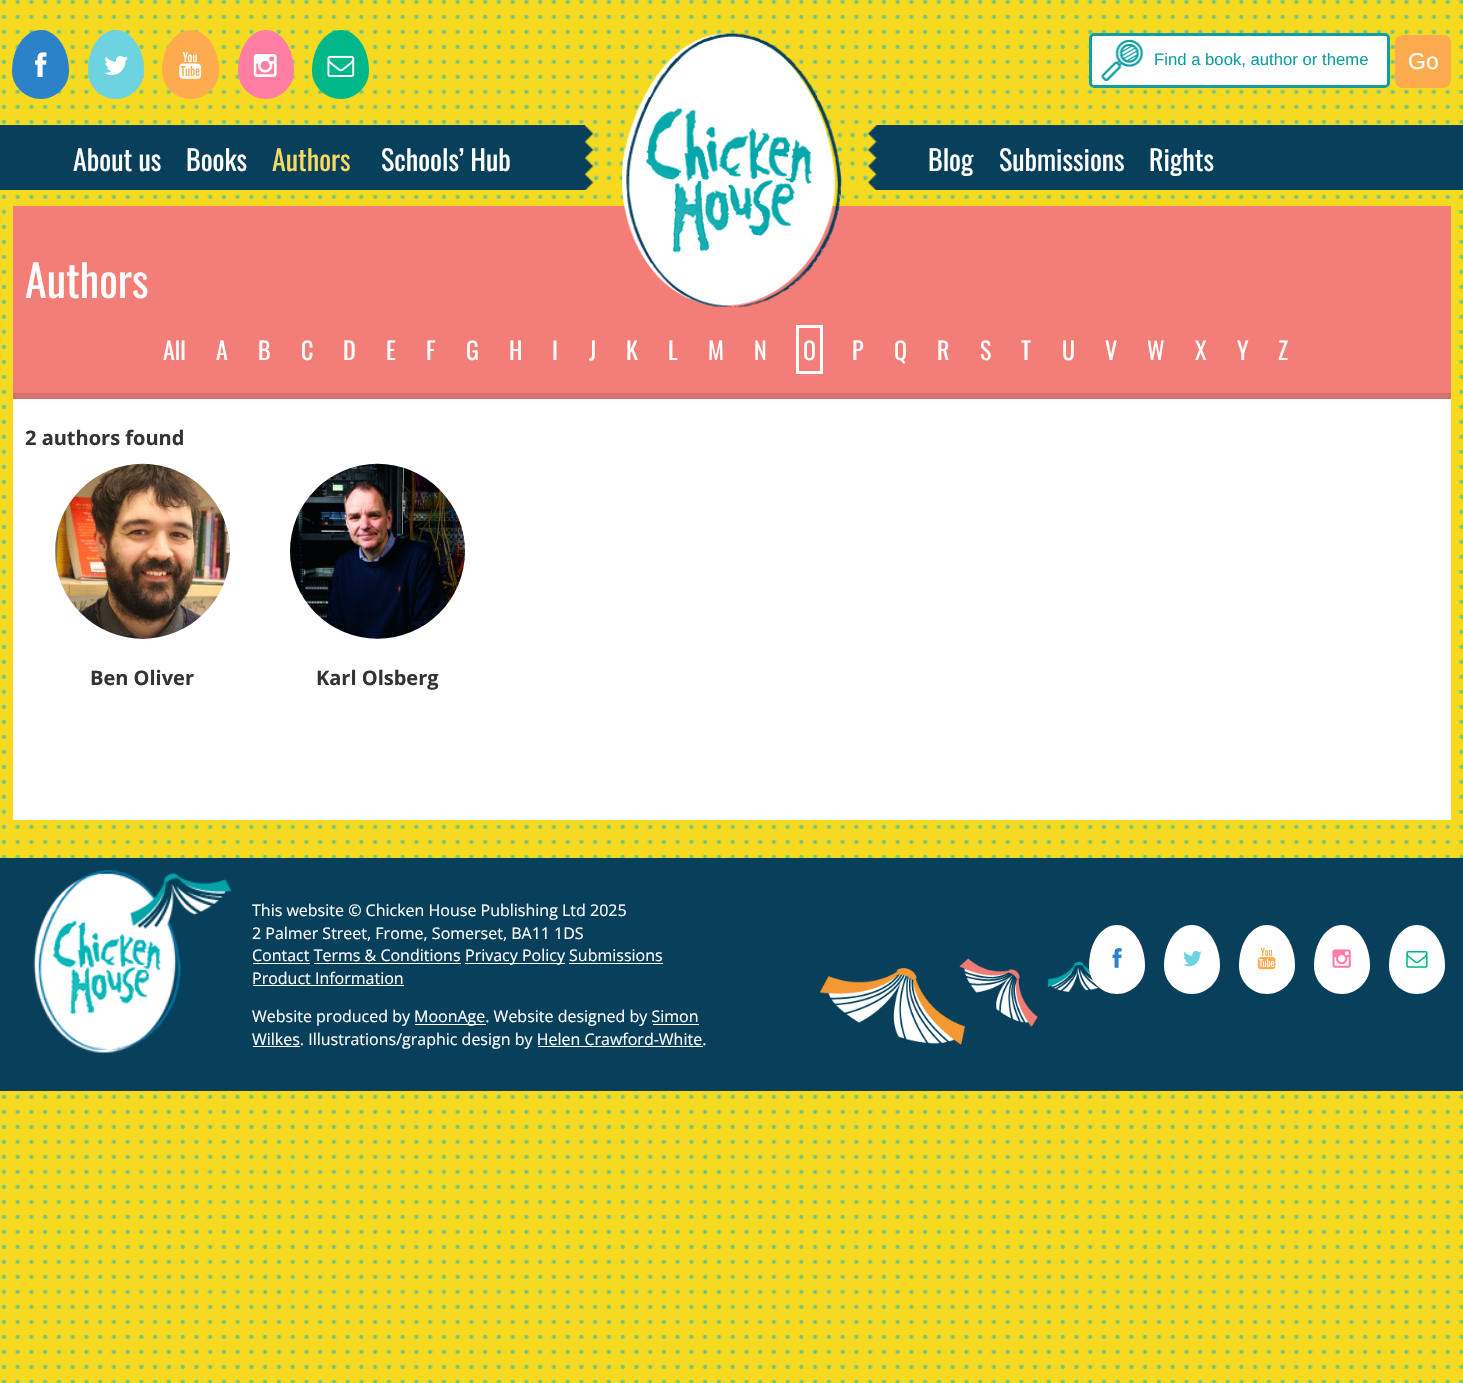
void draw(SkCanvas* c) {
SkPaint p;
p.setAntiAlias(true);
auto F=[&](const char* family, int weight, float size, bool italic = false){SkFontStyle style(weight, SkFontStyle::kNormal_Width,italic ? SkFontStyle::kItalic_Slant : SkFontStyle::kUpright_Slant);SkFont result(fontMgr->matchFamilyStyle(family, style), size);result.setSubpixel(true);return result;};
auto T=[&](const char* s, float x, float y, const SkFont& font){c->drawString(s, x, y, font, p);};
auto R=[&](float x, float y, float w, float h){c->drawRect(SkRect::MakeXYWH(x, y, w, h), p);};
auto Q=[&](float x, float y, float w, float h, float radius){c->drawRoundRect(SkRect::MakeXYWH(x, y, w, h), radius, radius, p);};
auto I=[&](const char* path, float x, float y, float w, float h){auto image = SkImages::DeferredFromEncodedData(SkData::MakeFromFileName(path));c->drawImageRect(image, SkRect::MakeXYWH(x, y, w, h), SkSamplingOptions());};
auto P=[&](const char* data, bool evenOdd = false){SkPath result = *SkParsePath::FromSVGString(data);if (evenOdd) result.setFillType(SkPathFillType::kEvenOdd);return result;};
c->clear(0xfff5da21);
I("1.png",1,1091,1462,292);
I("2.png",1,0,1462,858);
p.setColor(0xff2c82c9);
c->drawPath(P("M41 30c15 0 28 18 28 41c0 15-13 28-28 28c-16 0-29-13-29-28c0-23 13-41 29-41z"),p);
I("3.png",35,52,12,25);
p.setColor(0xff6dd3e1);
c->drawPath(P("M116 30c15 0 28 18 28 41c0 15-13 28-28 28c-16 0-28-13-28-28c0-23 12-41 28-41z"),p);
I("4.png",104,56,24,19);
p.setColor(0xfffdab4e);
c->drawPath(P("M191 30c15 0 28 18 28 41c0 15-13 28-28 28c-16 0-29-13-29-28c0-23 13-41 29-41z"),p);
I("5.png",179,52,23,27);
p.setColor(0xffff7ea2);
c->drawPath(P("M266 30c15 0 28 18 28 41c0 15-13 28-28 28c-16 0-28-13-28-28c0-23 12-41 28-41z"),p);
I("6.png",253,54,24,23);
p.setColor(0xff00b788);
c->drawPath(P("M341 30c15 0 28 18 28 41c0 15-13 28-28 28c-16 0-29-13-29-28c0-23 13-41 29-41z"),p);
I("7.png",327,55,28,22);
p.setColor(0xffffffff);
Q(1089,33,301,55,5);
I("8.png",1101,39,43,42);
p.setStroke(true);
p.setStrokeWidth(3);
p.setColor(0xff109ea1);
c->drawRoundRect(SkRect::MakeXYWH(1090.5,34.5,298,52),3.5,3.5,p);
auto f1 = F("Liberation Sans",400,16.7);
p.setStroke(false);
T("Find a book, author or theme",1154,65,f1);
p.setColor(0xfffdab4e);
Q(1395,35,56,53,8);
auto f2 = F("Liberation Sans",400,23);
p.setColor(0xffffffff);
T("Go",1408,69,f2);
p.setColor(0xff083f5b);
R(0,125,1463,65);
I("10.png",584,125,294,65);
p.setColor(0xfff37e78);
R(13,206,1438,187);
I("9.png",622,33,220,275);
auto f3 = F("Oswald",400,28);
p.setColor(0xffffffff);
T("About us",73,171,f3);
T("Books",186,171,f3);
p.setColor(0xfff7da64);
T("Authors",272,171,f3);
p.setColor(0xffffffff);
T("Schools’ Hub",381,171,f3);
T("Blog",928,171,f3);
T("Submissions",999,171,f3);
T("Rights",1149,171,f3);
p.setColor(0xffd6726c);
R(13,393,1438,6);
auto f4 = F("Oswald",400,44);
p.setColor(0xffffffff);
T("Authors",25,298,f4);
auto f5 = F("Oswald",400,24);
T("All",163,360,f5);
T("A",216,360,f5);
T("B",258,360,f5);
T("C",301,360,f5);
T("D",343,360,f5);
T("E",386,360,f5);
T("F",426,360,f5);
T("G",466,360,f5);
T("H",509,360,f5);
T("I",552,360,f5);
T("J",589,360,f5);
T("K",626,360,f5);
T("L",668,360,f5);
T("M",708,360,f5);
T("N",754,360,f5);
p.setStroke(true);
c->drawRect(SkRect::MakeXYWH(797.5,326.5,24,46),p);
p.setStroke(false);
T("O",803,360,f5);
T("P",852,360,f5);
T("Q",894,360,f5);
T("R",937,360,f5);
T("S",980,360,f5);
T("T",1021,360,f5);
T("U",1062,360,f5);
T("V",1105,360,f5);
T("W",1147,360,f5);
T("X",1195,360,f5);
T("Y",1237,360,f5);
T("Z",1278,360,f5);
R(13,399,1438,421);
auto f6 = F("Open Sans",700,20);
p.setColor(0xff333333);
T("2 authors found",25,445,f6);
p.setColor(0xfff1f1f2);
c->drawCircle(142.5,551.5,87.5,p);
I("11.png",55,463,175,176);
p.setColor(0xff333333);
T("Ben Oliver",90,685,f6);
p.setColor(0xfff1f1f2);
c->drawCircle(377.5,551.5,87.5,p);
I("12.png",289,463,176,176);
p.setColor(0xff333333);
T("Karl Olsberg",316,685,f6);
p.setColor(0xff083f5b);
R(0,858,1463,233);
I("13.png",820,958,281,89);
I("14.png",33,870,199,183);
auto f7 = F("Open Sans",400,16);
p.setColor(0xffffffff);
T("This website © Chicken House Publishing Ltd 2025",252,916,f7);
T("2 Palmer Street, Frome, Somerset, BA11 1DS",252,939,f7);
T("Contact Terms & Conditions",252,961,f7);
R(253,963,57,1);
R(465,963,100,1);
T("Privacy Policy Submissions",465,961,f7);
R(314,963,147,1);
R(569,963,94,1);
T("Product Information",252,984,f7);
R(253,985,151,1);
T("Website produced by",252,1022,f7);
R(415,1024,71,1);
T("MoonAge. Website designed by Simon",414,1022,f7);
R(253,1046,47,1);
T("Wilkes. Illustrations/graphic design by Helen Crawford-White.",252,1045,f7);
R(653,1024,46,1);
R(538,1046,165,1);
c->drawPath(P("M1117 925c15 0 28 18 28 41c0 15-13 28-28 28c-16 0-28-13-28-28c0-23 12-41 28-41z"),p);
I("15.png",1112,948,10,20);
c->drawPath(P("M1192 925c15 0 28 18 28 41c0 15-13 28-28 28c-16 0-28-13-28-28c0-23 12-41 28-41z"),p);
I("16.png",1183,951,19,16);
c->drawPath(P("M1267 925c15 0 28 18 28 41c0 15-13 28-28 28c-16 0-28-13-28-28c0-23 12-41 28-41z"),p);
I("17.png",1257,947,19,23);
c->drawPath(P("M1342 925c15 0 28 18 28 41c0 15-13 28-28 28c-16 0-28-13-28-28c0-23 12-41 28-41z"),p);
I("18.png",1332,949,19,19);
c->drawPath(P("M1417 925c15 0 28 18 28 41c0 15-13 28-28 28c-16 0-28-13-28-28c0-23 12-41 28-41z"),p);
I("19.png",1406,951,22,17);
}
